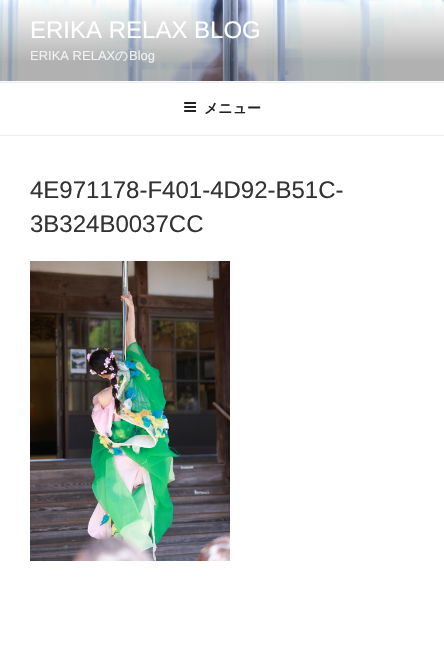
void draw(SkCanvas* c) {
SkPaint p;
p.setAntiAlias(true);
auto F=[&](const char* family, int weight, float size, bool italic = false){SkFontStyle style(weight, SkFontStyle::kNormal_Width,italic ? SkFontStyle::kItalic_Slant : SkFontStyle::kUpright_Slant);SkFont result(fontMgr->matchFamilyStyle(family, style), size);result.setSubpixel(true);return result;};
auto T=[&](const char* s, float x, float y, const SkFont& font){c->drawString(s, x, y, font, p);};
auto R=[&](float x, float y, float w, float h){c->drawRect(SkRect::MakeXYWH(x, y, w, h), p);};
auto I=[&](const char* path, float x, float y, float w, float h){auto image = SkImages::DeferredFromEncodedData(SkData::MakeFromFileName(path));c->drawImageRect(image, SkRect::MakeXYWH(x, y, w, h), SkSamplingOptions());};
c->clear(0xffffffff);
p.setColor(0xfffafafa);
R(0,81,444,1);
I("1.png",0,0,444,81);
auto f1 = F("Liberation Sans",400,24);
p.setColor(0xffffffff);
T("ERIKA RELAX BLOG",30,38,f1);
auto f2 = F("Liberation Sans",400,13);
p.setColor(0xfff1f1f1);
T("ERIKA RELAX",30,60,f2);
auto f3 = F("WenQuanYi Zen Hei",500,13);
T("の",115,60,f3);
T("Blog",129,60,f2);
p.setColor(0xffeeeeee);
R(0,82,444,1);
R(0,135,444,1);
I("2.png",184,102,13,10);
auto f4 = F("WenQuanYi Zen Hei",700,14);
p.setColor(0xff222222);
T("メニュー",204,113,f4);
p.setColor(0xff333333);
T("4E971178-F401-4D92-B51C-",30,198,f1);
T("3B324B0037CC",30,232,f1);
I("3.png",30,261,200,300);
}
